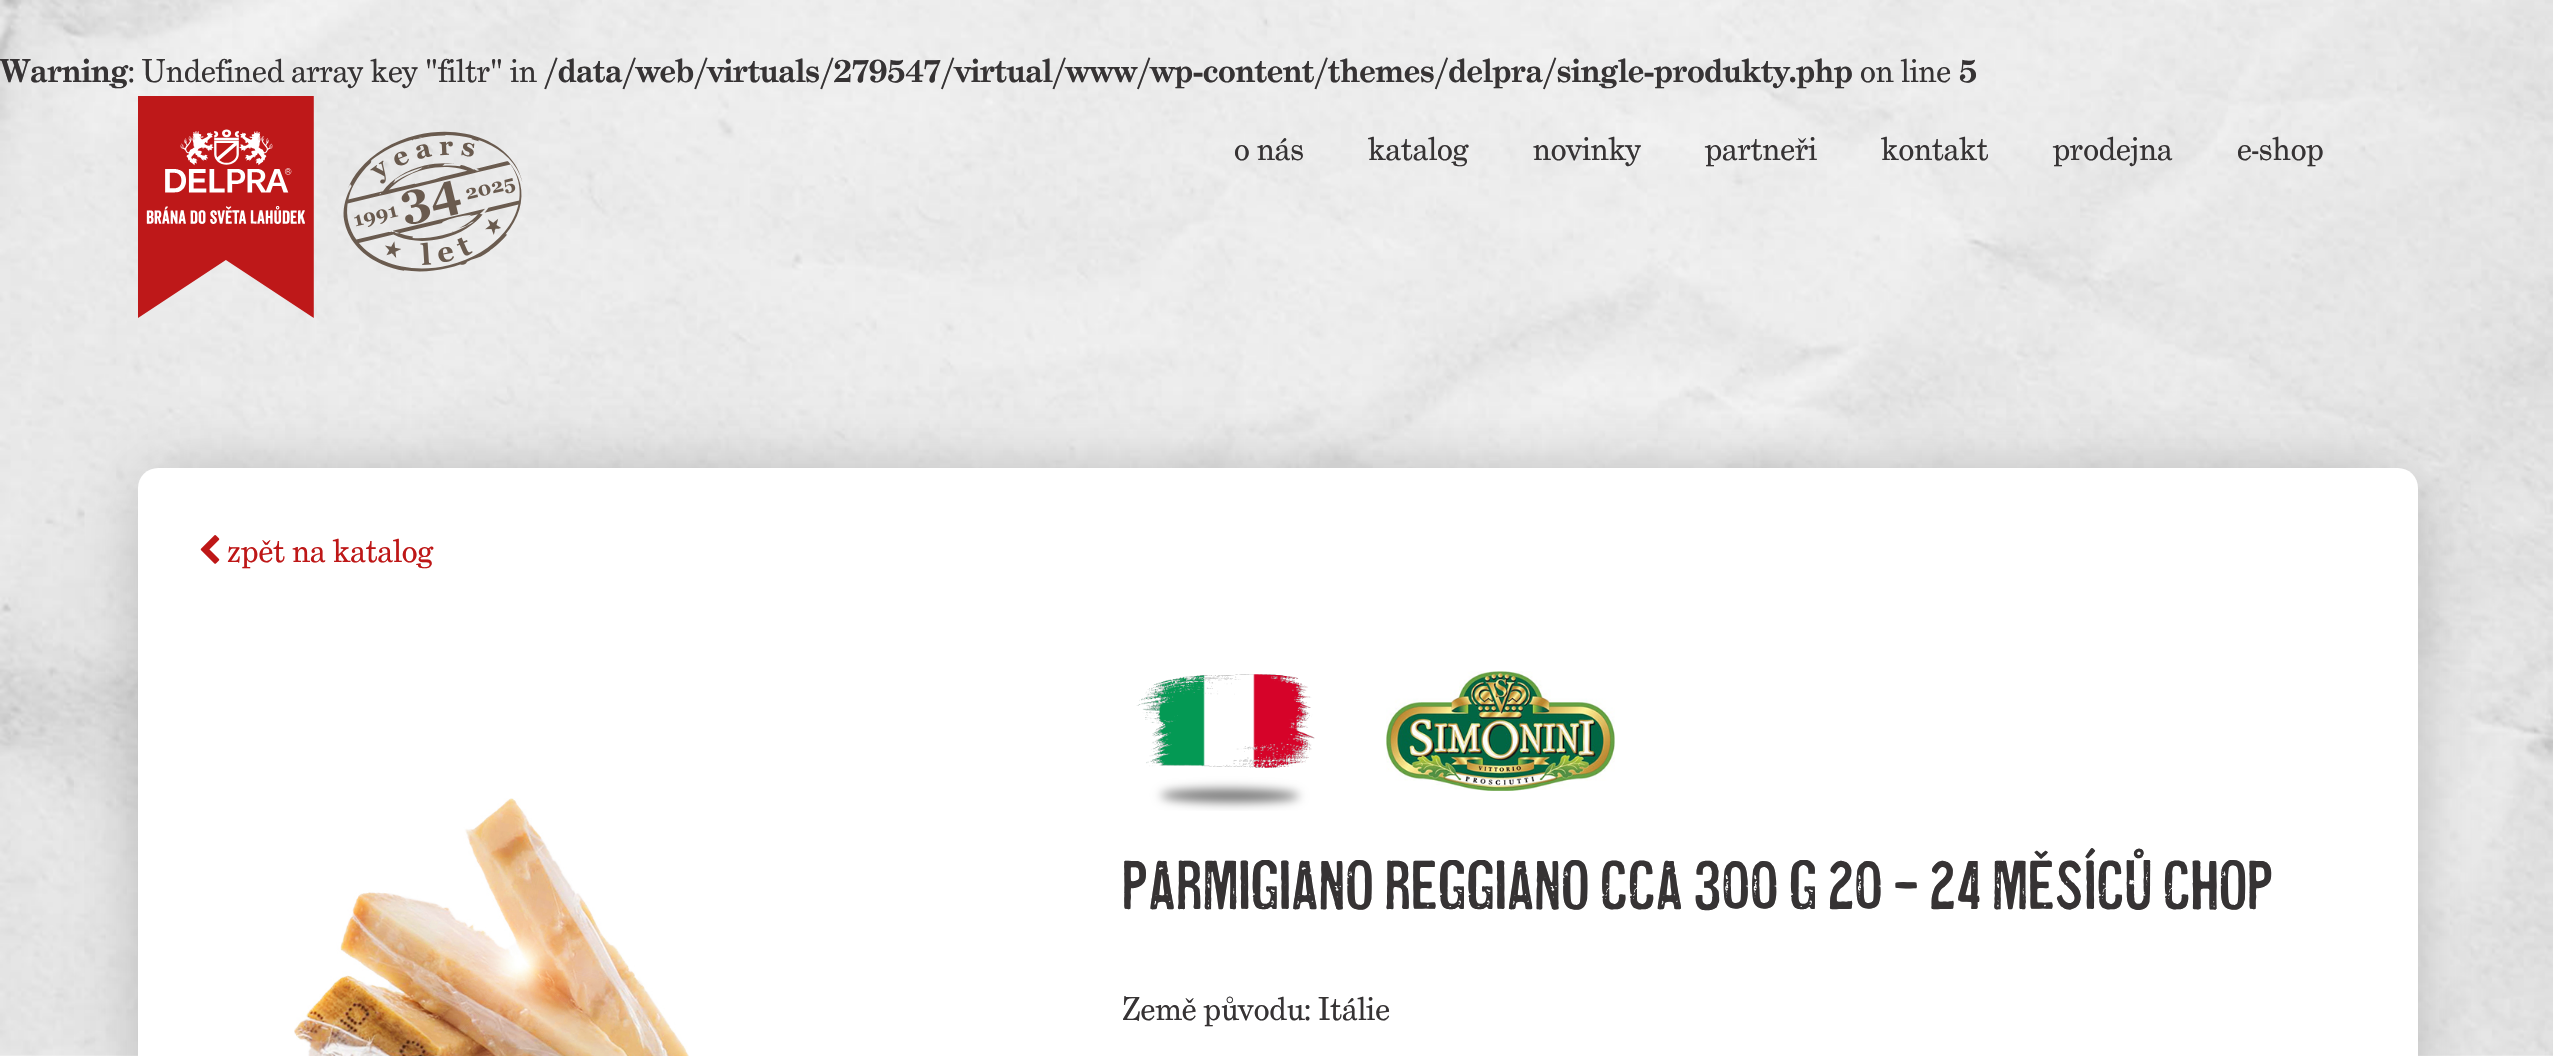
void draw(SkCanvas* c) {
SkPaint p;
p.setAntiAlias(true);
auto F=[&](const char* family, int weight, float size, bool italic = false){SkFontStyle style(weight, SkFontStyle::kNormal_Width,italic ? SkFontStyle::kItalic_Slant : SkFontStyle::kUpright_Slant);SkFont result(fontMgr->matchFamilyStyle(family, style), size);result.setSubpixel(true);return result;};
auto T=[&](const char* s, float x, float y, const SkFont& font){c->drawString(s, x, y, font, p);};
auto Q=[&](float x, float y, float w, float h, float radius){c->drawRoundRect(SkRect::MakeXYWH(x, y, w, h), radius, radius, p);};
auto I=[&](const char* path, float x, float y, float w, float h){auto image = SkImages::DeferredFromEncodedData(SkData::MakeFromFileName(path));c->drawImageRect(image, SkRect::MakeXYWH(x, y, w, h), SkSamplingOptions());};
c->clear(0xffffffff);
I("1.png",0,0,2553,1056);
auto f1 = F("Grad",700,32);
p.setColor(0xff363334);
T("Warning",0,82,f1);
auto f2 = F("Grad",400,32);
T(": Undefined array key \"filtr\" in",128,82,f2);
T("/data/web/virtuals/279547/virtual/www/wp-content/themes/delpra/single-produkty.php",544,82,f1);
T("on line",1860,82,f2);
T("5",1959,82,f1);
I("2.png",138,96,385,222);
T("o nás",1234,160,f2);
T("katalog",1368,160,f2);
T("novinky",1533,160,f2);
T("partneři",1705,160,f2);
T("kontakt",1881,160,f2);
T("prodejna",2053,160,f2);
T("e-shop",2237,160,f2);
p.setColor(0x45000000);
p.setMaskFilter(SkMaskFilter::MakeBlur(kNormal_SkBlurStyle, 37));
c->drawRoundRect(SkRect::MakeXYWH(150,480,2256,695),8,8,p);
p.setMaskFilter(nullptr);
p.setColor(0xffffffff);
Q(138,468,2280,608,20);
I("3.png",200,535,20,29);
p.setColor(0xffbe1717);
T("zpět na katalog",227,562,f2);
I("4.png",294,798,395,258);
I("5.png",1136,674,179,137);
I("6.png",1386,671,229,120);
auto f3 = F("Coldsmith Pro",400,72);
p.setColor(0xff363334);
T("PARMIGIANO REGGIANO CCA 300 G 20 – 24 MĚSÍCŮ CHOP",1122,909,f3);
T("Země původu: Itálie",1122,1020,f2);
}
